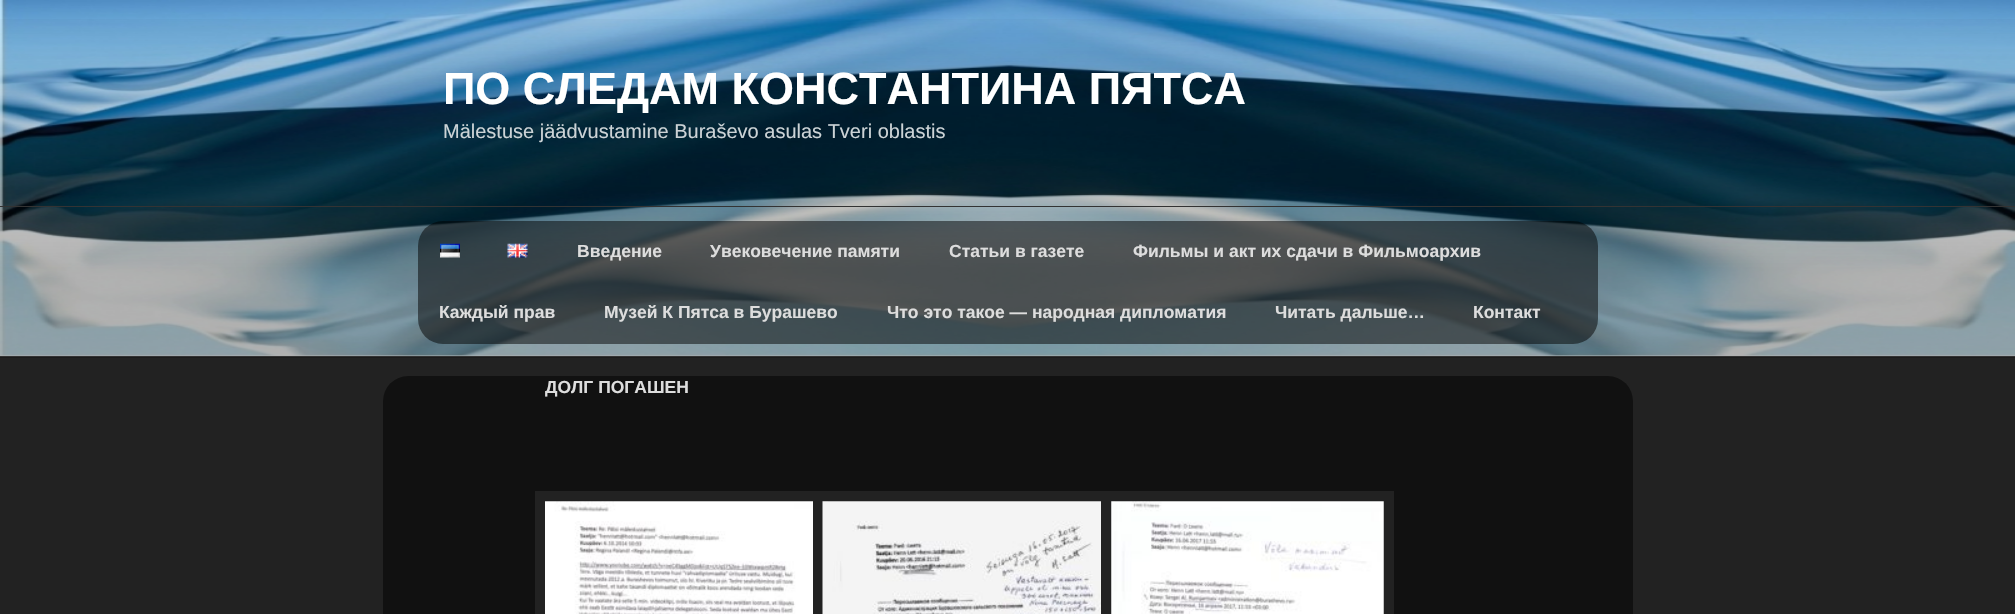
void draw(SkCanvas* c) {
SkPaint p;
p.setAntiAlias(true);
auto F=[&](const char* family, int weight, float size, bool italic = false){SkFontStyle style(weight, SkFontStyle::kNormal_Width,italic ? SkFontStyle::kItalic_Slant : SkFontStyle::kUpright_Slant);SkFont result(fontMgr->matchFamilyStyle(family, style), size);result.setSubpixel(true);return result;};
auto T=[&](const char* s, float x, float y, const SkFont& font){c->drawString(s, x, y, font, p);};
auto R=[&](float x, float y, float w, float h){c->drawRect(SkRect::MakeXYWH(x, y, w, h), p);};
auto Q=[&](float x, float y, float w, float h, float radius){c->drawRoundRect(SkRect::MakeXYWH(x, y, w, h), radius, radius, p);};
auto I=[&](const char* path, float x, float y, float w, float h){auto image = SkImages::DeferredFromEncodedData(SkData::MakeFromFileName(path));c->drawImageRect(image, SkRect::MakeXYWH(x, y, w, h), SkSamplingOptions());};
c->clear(0xff222222);
p.setColor(0xff262626);
R(0,357,2015,1);
I("1.png",0,0,2015,356);
{
const SkColor colors[] = {0x00000000,0x4d000000,0x4d000000};
const float stops[] = {0,.75,1};
const SkPoint ends[] = {{1008,0}, {1008,358}};
p.setShader(SkGradientShader::MakeLinear(ends, colors, stops, 3, SkTileMode::kClamp));
p.setAlpha(255);
}
R(0,19,2015,339);
auto f1 = F("Liberation Sans",700,45);
p.setShader(nullptr);
p.setColor(0xffffffff);
T("ПО СЛЕДАМ КОНСТАНТИНА ПЯТСА",443,104,f1);
auto f2 = F("Liberation Sans",400,20);
p.setColor(0xffccd3d6);
T("Mälestuse jäädvustamine Buraševo asulas Tveri oblastis",443,138,f2);
p.setColor(0xff333333);
R(0,206,2015,1);
R(0,356,2015,1);
p.setColor(0x80000000);
Q(418,221,1180,123,25);
I("2.png",440,243,20,15);
I("3.png",507,243,21,15);
auto f3 = F("Liberation Sans",700,17.5);
p.setColor(0xffdddddd);
T("Введение",577,257,f3);
T("Увековечение памяти",710,257,f3);
T("Статьи в газете",949,257,f3);
T("Фильмы и акт их сдачи в Фильмоархив",1133,257,f3);
T("Каждый прав",439,318,f3);
T("Музей К Пятса в Бурашево",604,318,f3);
T("Что это такое — народная дипломатия",887,318,f3);
T("Читать дальше…",1275,318,f3);
T("Контакт",1473,318,f3);
p.setColor(0xff111111);
Q(383,376,1250,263,25);
p.setColor(0xffdddddd);
T("ДОЛГ ПОГАШЕН",545,393,f3);
p.setStroke(true);
p.setStrokeWidth(10);
p.setColor(0xff222222);
c->drawRect(SkRect::MakeXYWH(540,496,283,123),p);
c->drawRect(SkRect::MakeXYWH(818,496,292,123),p);
c->drawRect(SkRect::MakeXYWH(1106,496,283,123),p);
I("4.png",545,501,268,113);
I("5.png",822,501,279,113);
I("6.png",1111,501,273,113);
}
